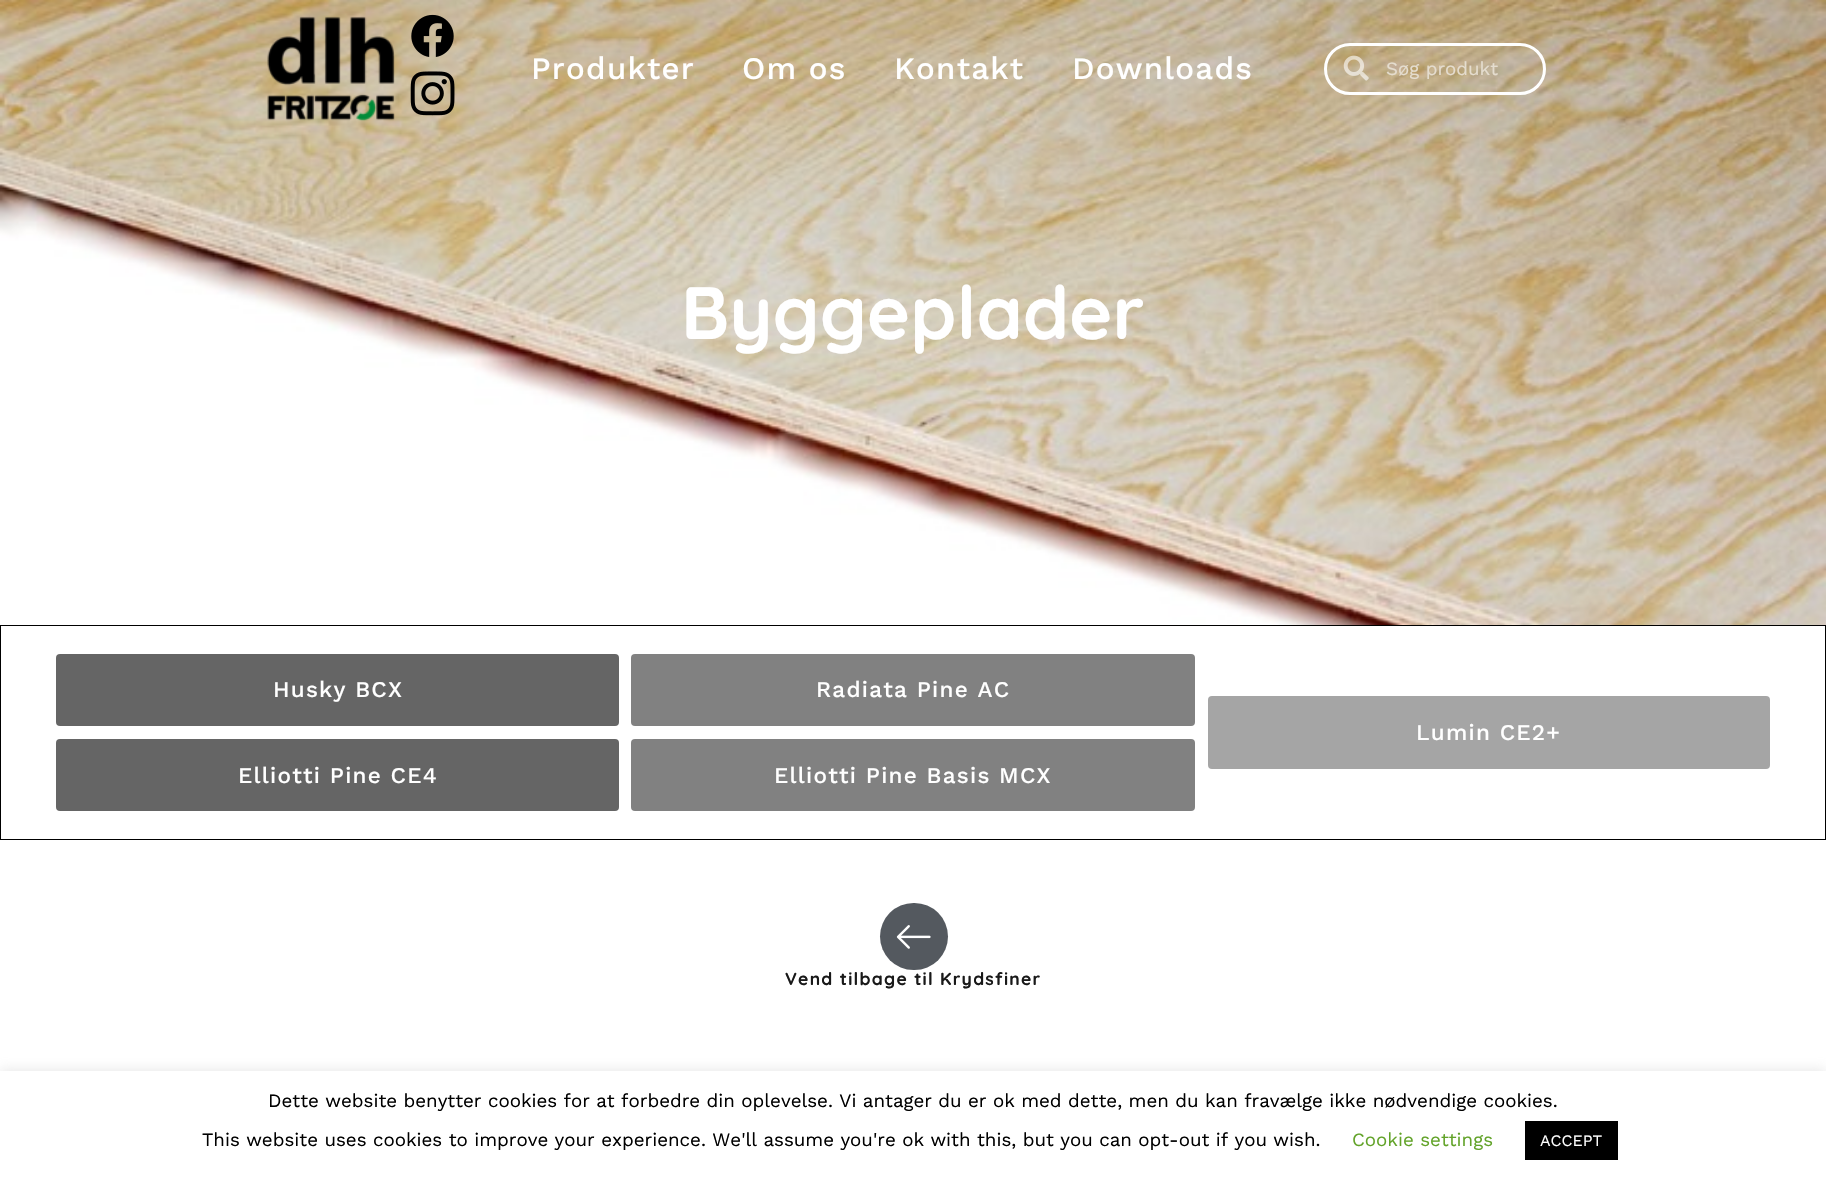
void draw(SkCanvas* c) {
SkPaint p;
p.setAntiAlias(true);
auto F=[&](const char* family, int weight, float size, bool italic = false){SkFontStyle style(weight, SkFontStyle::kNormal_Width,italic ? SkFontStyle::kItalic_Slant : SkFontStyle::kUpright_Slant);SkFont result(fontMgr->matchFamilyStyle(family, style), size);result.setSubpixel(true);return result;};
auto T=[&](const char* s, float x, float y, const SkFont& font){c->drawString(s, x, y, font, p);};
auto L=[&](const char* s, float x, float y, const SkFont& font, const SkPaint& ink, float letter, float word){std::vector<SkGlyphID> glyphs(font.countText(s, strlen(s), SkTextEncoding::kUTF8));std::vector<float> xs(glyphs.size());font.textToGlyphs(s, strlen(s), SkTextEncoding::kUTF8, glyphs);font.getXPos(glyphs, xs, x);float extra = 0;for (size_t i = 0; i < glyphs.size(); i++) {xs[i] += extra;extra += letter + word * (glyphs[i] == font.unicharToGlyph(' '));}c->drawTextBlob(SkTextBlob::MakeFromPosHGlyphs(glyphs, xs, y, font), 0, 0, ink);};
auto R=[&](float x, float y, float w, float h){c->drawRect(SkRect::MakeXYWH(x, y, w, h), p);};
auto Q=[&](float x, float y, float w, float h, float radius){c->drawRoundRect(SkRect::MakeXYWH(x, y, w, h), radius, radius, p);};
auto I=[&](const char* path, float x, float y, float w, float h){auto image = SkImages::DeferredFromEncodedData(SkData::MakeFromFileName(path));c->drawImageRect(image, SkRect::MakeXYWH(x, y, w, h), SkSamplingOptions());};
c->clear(0xffffffff);
I("5.png",0,0,1826,625);
I("1.png",267,16,128,105);
I("2.png",411,14,43,43);
I("3.png",410,71,45,45);
auto f1 = F("Work Sans",500,31.25);
p.setColor(0xffffffff);
L("Produkter",531,79,f1,p,1.25,0);
L("Om os",742,79,f1,p,1.25,0);
L("Kontakt",894,79,f1,p,1.25,0);
L("Downloads",1072,79,f1,p,1.25,0);
p.setStroke(true);
p.setStrokeWidth(3);
c->drawRoundRect(SkRect::MakeXYWH(1325.5,44.5,219,49),24.5,24.5,p);
I("4.png",1343,55,26,26);
auto f2 = F("Work Sans",400,18.75);
p.setStroke(false);
p.setColor(0xffe5ddcf);
T("Søg produkt",1386,75,f2);
auto f3 = F("Quicksand",300,73.75);
p.setColor(0xffffffff);
T("Byggeplader",681,339,f3);
p.setStroke(true);
p.setStrokeWidth(1);
p.setColor(0xff000000);
c->drawRect(SkRect::MakeXYWH(.5,625.5,1825,214),p);
p.setStroke(false);
p.setColor(0xff656565);
Q(56,654,563,72,4);
auto f4 = F("Work Sans",500,22.5);
p.setColor(0xffffffff);
L("Husky BCX",273,697,f4,p,1.25,0);
p.setColor(0xff656565);
Q(56,739,563,72,4);
p.setColor(0xffffffff);
L("Elliotti Pine CE4",238,783,f4,p,1.25,0);
p.setColor(0xff818181);
Q(631,654,564,72,4);
p.setColor(0xffffffff);
L("Radiata Pine AC",816,697,f4,p,1.25,0);
p.setColor(0xff818181);
Q(631,739,564,72,4);
p.setColor(0xffffffff);
L("Elliotti Pine Basis MCX",774,783,f4,p,1.25,0);
p.setColor(0xffa5a5a5);
Q(1208,696,562,73,4);
p.setColor(0xffffffff);
L("Lumin CE2+",1416,740,f4,p,1.25,0);
p.setColor(0xff54595f);
Q(880,903,68,67,33.5);
I("6.png",896,925,35,24);
auto f5 = F("Quicksand",300,17.5);
p.setColor(0xff191919);
L("Vend tilbage til Krydsfiner",785,985,f5,p,1.25,0);
p.setColor(0x4dacabab);
p.setMaskFilter(SkMaskFilter::MakeBlur(kNormal_SkBlurStyle, 6));
c->drawRect(SkRect::MakeXYWH(0,1070,1826,110),p);
p.setMaskFilter(nullptr);
p.setColor(0xffffffff);
R(0,1071,1826,110);
p.setColor(0xff000000);
T("Dette website benytter cookies for at forbedre din oplevelse. Vi antager du er ok med dette, men du kan fravælge ikke nødvendige cookies.",268,1107,f2);
T("This website uses cookies to improve your experience. We'll assume you're ok with this, but you can opt-out if you wish.",202,1146,f2);
p.setColor(0xff62a329);
T("Cookie settings",1352,1146,f2);
p.setColor(0xff000000);
R(1525,1121,93,39);
auto f6 = F("Work Sans",400,16);
p.setColor(0xffffffff);
T("ACCEPT",1540,1146,f6);
}
